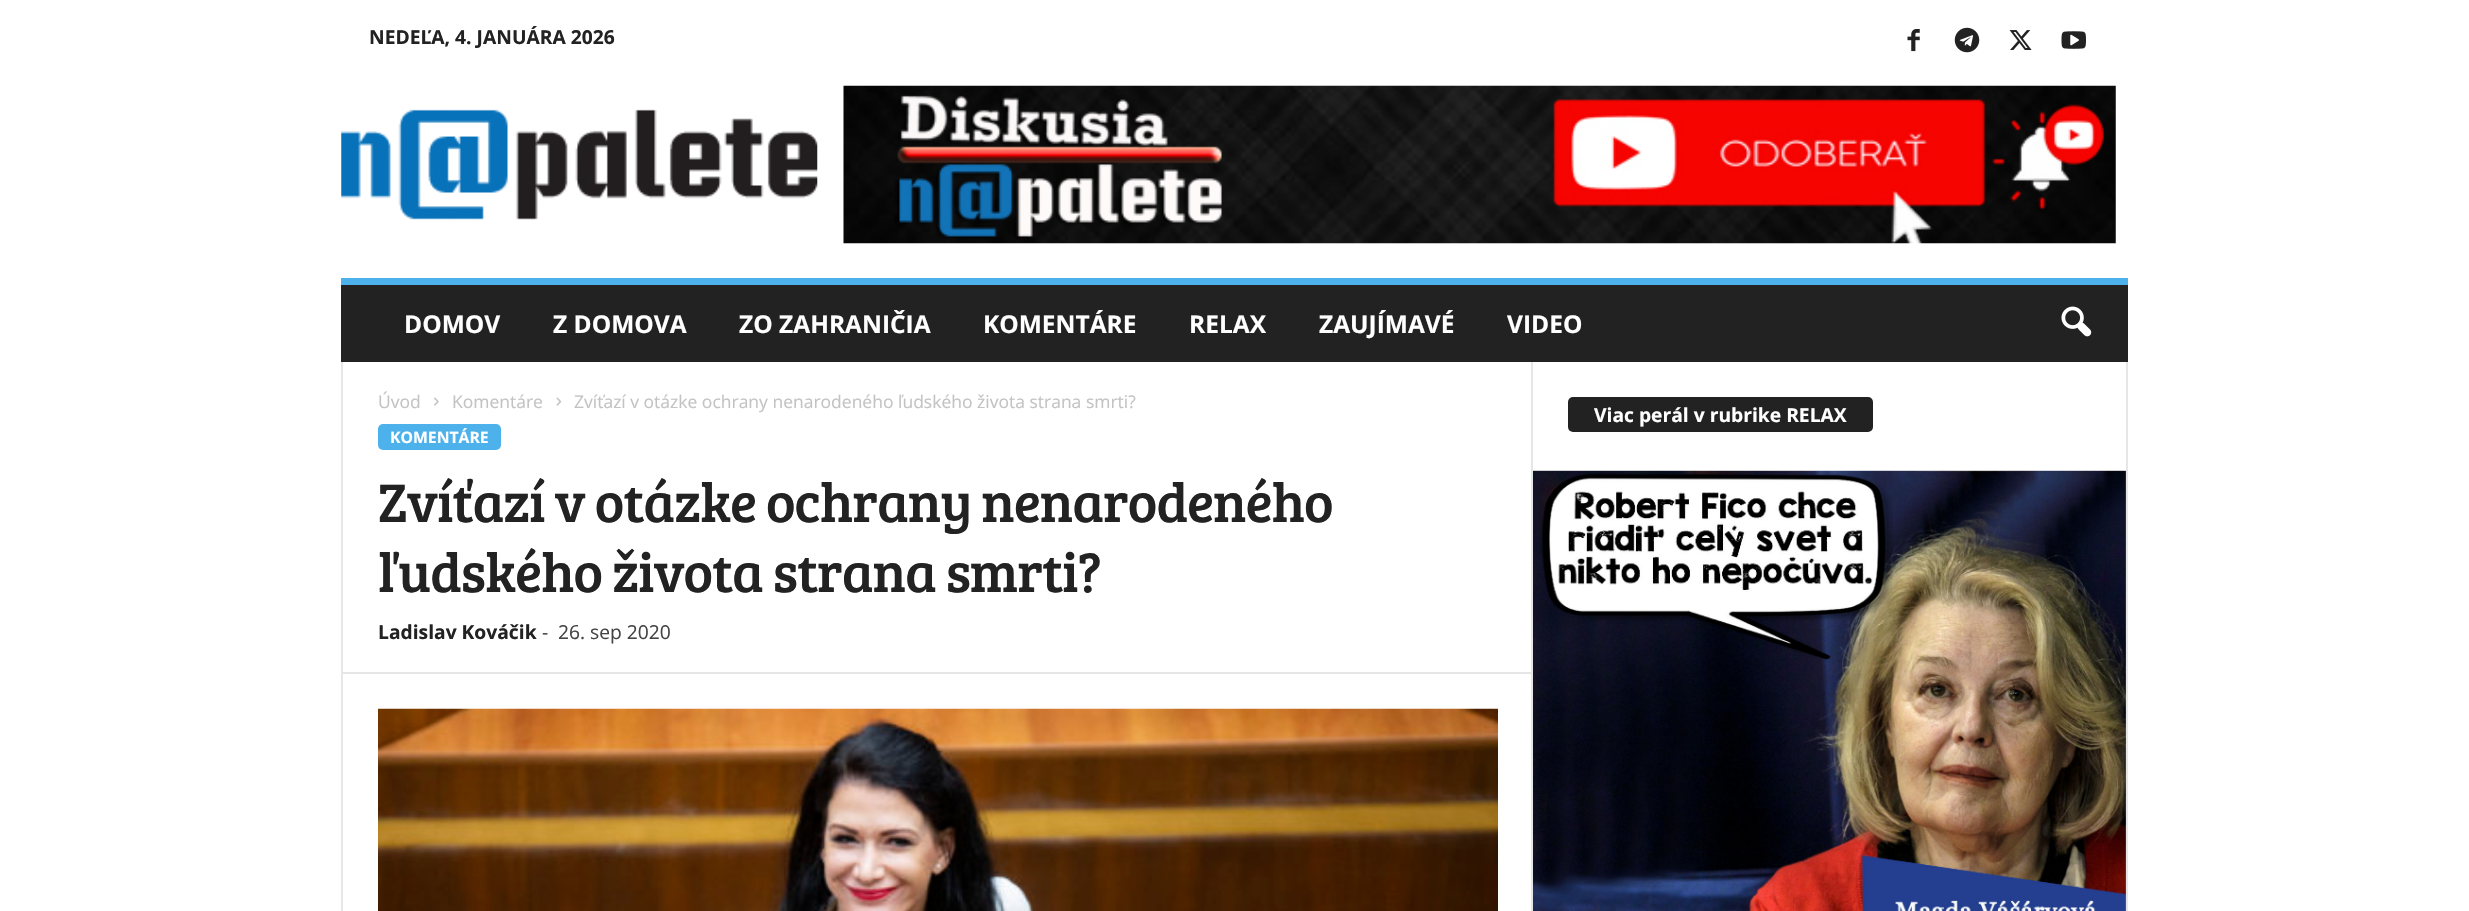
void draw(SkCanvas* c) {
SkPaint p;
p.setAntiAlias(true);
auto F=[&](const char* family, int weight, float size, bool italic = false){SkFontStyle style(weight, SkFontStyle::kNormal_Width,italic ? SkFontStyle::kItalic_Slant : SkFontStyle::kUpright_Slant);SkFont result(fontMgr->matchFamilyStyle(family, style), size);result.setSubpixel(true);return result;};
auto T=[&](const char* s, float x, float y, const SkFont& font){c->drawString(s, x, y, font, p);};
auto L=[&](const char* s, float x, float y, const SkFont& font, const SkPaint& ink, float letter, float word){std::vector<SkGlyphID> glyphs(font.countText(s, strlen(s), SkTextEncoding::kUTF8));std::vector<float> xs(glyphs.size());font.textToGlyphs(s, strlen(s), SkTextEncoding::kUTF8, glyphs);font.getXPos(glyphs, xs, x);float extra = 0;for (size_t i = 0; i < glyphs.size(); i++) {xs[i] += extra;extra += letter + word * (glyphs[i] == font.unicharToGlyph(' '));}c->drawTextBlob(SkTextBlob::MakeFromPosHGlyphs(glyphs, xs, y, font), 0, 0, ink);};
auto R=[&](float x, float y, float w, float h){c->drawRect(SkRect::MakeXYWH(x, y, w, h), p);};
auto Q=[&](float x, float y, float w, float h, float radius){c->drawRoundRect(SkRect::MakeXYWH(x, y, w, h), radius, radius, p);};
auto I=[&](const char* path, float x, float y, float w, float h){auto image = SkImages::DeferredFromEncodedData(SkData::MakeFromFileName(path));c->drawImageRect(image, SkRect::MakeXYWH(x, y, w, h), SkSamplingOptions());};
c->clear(0xffffffff);
auto f1 = F("Open Sans",700,19.25);
p.setColor(0xff222222);
T("NEDEĽA, 4. JANUÁRA 2026",369,44,f1);
I("1.png",1907,29,13,23);
I("2.png",1954,27,26,26);
I("3.png",2009,30,23,20);
I("4.png",2061,31,25,18);
I("5.png",341,109,477,111);
I("6.png",843,85,1273,159);
R(341,285,1787,77);
p.setColor(0xff4db2ec);
R(341,278,1787,7);
auto f2 = F("Open Sans",700,24.5);
p.setColor(0xffffffff);
T("DOMOV",404,333,f2);
T("Z DOMOVA",553,333,f2);
T("ZO ZAHRANIČIA",739,333,f2);
T("KOMENTÁRE",983,333,f2);
T("RELAX",1189,333,f2);
T("ZAUJÍMAVÉ",1319,333,f2);
T("VIDEO",1507,333,f2);
I("7.png",2061,306,31,31);
p.setColor(0xffe6e6e6);
R(341,362,2,549);
auto f3 = F("Open Sans",400,17.5);
p.setColor(0xffc3c3c3);
T("Úvod",378,408,f3);
I("8.png",434,397,5,9);
T("Komentáre",452,408,f3);
I("9.png",556,397,6,9);
T("Zvíťazí v otázke ochrany nenarodeného ľudského života strana smrti?",574,408,f3);
p.setColor(0xff4db2ec);
Q(378,424,123,26,5);
auto f4 = F("Open Sans",700,15.75);
p.setColor(0xffffffff);
T("KOMENTÁRE",390,443,f4);
auto f5 = F("Bree Serif",400,56);
p.setColor(0xff222222);
L("Zvíťazí v otázke ochrany nenarodeného",378,522,f5,p,-1.1,0);
L("ľudského života strana smrti?",378,592,f5,p,-1.1,0);
T("Ladislav Kováčik",378,639,f1);
auto f6 = F("Open Sans",400,19.25);
p.setColor(0xff444444);
T("-",542,639,f6);
T("26. sep 2020",558,639,f6);
p.setColor(0xffe6e6e6);
R(343,672,1188,2);
I("10.png",378,708,1120,203);
R(1531,362,2,549);
p.setColor(0xff222222);
Q(1568,397,305,35,5);
p.setColor(0xffffffff);
T("Viac perál v rubrike RELAX",1594,422,f1);
I("11.png",1533,470,593,441);
p.setColor(0xffe6e6e6);
R(2126,362,2,549);
}
